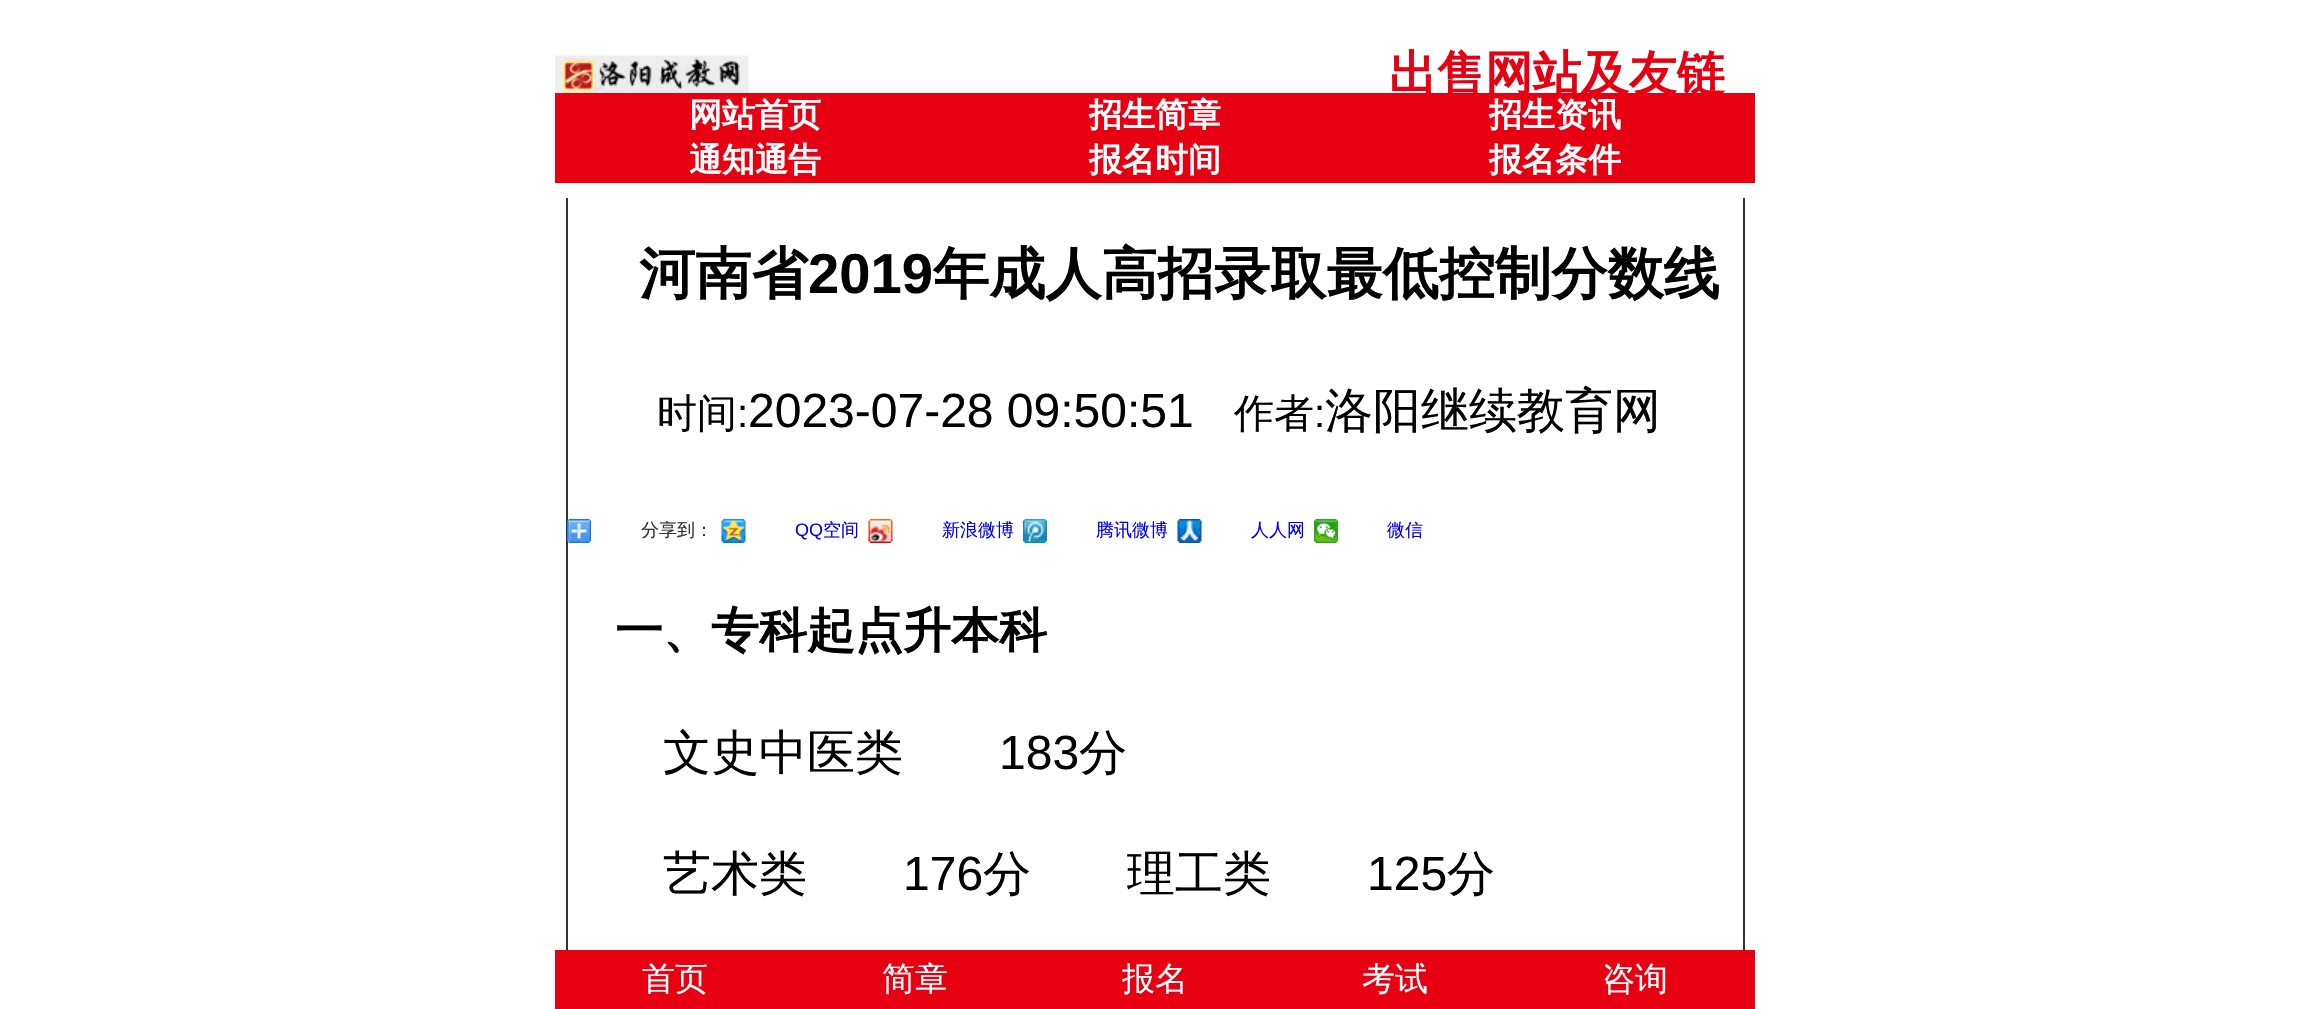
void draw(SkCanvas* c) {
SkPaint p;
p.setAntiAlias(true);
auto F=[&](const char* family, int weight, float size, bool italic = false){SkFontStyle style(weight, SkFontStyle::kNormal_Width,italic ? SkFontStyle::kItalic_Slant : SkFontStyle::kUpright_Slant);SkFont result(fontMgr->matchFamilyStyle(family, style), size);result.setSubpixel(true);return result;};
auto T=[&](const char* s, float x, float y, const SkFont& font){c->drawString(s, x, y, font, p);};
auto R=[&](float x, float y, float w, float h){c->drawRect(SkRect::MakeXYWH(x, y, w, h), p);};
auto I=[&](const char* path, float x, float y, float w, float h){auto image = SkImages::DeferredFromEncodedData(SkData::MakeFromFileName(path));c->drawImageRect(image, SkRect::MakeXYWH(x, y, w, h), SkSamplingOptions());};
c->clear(0xffffffff);
p.setStroke(true);
p.setStrokeWidth(2);
p.setColor(0xff333333);
c->drawRect(SkRect::MakeXYWH(567,181,1177,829),p);
p.setStroke(false);
p.setColor(0xffffffff);
R(566,180,1179,18);
I("1.png",555,55,194,38);
auto f1 = F("WenQuanYi Zen Hei",700,48);
p.setColor(0xffe60012);
T("出售网站及友链",1389,90,f1);
R(555,93,1200,90);
auto f2 = F("WenQuanYi Zen Hei",700,33);
p.setColor(0xffffffff);
T("网站首页",689,126,f2);
T("招生简章",1089,126,f2);
T("招生资讯",1489,126,f2);
T("通知通告",689,171,f2);
T("报名时间",1089,171,f2);
T("报名条件",1489,171,f2);
auto f3 = F("WenQuanYi Zen Hei",700,56.2);
p.setColor(0xff000000);
T("河南省",639,293,f3);
auto f4 = F("Liberation Sans",700,56.2);
T("2019",808,293,f4);
T("年成人高招录取最低控制分数线",933,293,f3);
auto f5 = F("WenQuanYi Zen Hei",500,40);
T("时间",657,427,f5);
auto f6 = F("Liberation Sans",400,40);
T(":",737,427,f6);
auto f7 = F("Liberation Sans",400,48);
T("2023-07-28 09:50:51",748,427,f7);
T("作者",1234,427,f5);
T(":",1314,427,f6);
auto f8 = F("WenQuanYi Zen Hei",500,48);
T("洛阳继续教育网",1325,427,f8);
I("2.png",567,519,24,24);
auto f9 = F("WenQuanYi Zen Hei",500,18);
p.setColor(0xff333333);
T("分享到：",641,536,f9);
I("3.png",721,519,25,24);
auto f10 = F("Liberation Sans",400,18);
p.setColor(0xff0000ee);
T("QQ",795,536,f10);
T("空间",823,536,f9);
I("4.png",868,519,25,24);
T("新浪微博",942,536,f9);
I("5.png",1023,519,24,24);
T("腾讯微博",1096,536,f9);
I("6.png",1177,519,25,24);
T("人人网",1251,536,f9);
I("7.png",1314,519,24,24);
T("微信",1387,536,f9);
p.setColor(0xff000000);
T("一、专科起点升本科",615,647,f1);
T("文史中医类",663,769,f8);
T("183",999,769,f7);
T("分",1079,769,f8);
T("艺术类",663,890,f8);
T("176",903,890,f7);
T("分",983,890,f8);
T("理工类",1127,890,f8);
T("125",1367,890,f7);
T("分",1447,890,f8);
p.setColor(0xffe60012);
R(555,950,1200,59);
auto f11 = F("WenQuanYi Zen Hei",500,33);
p.setColor(0xffffffff);
T("首页",642,990,f11);
T("简章",882,990,f11);
T("报名",1122,990,f11);
T("考试",1362,990,f11);
T("咨询",1602,990,f11);
}
